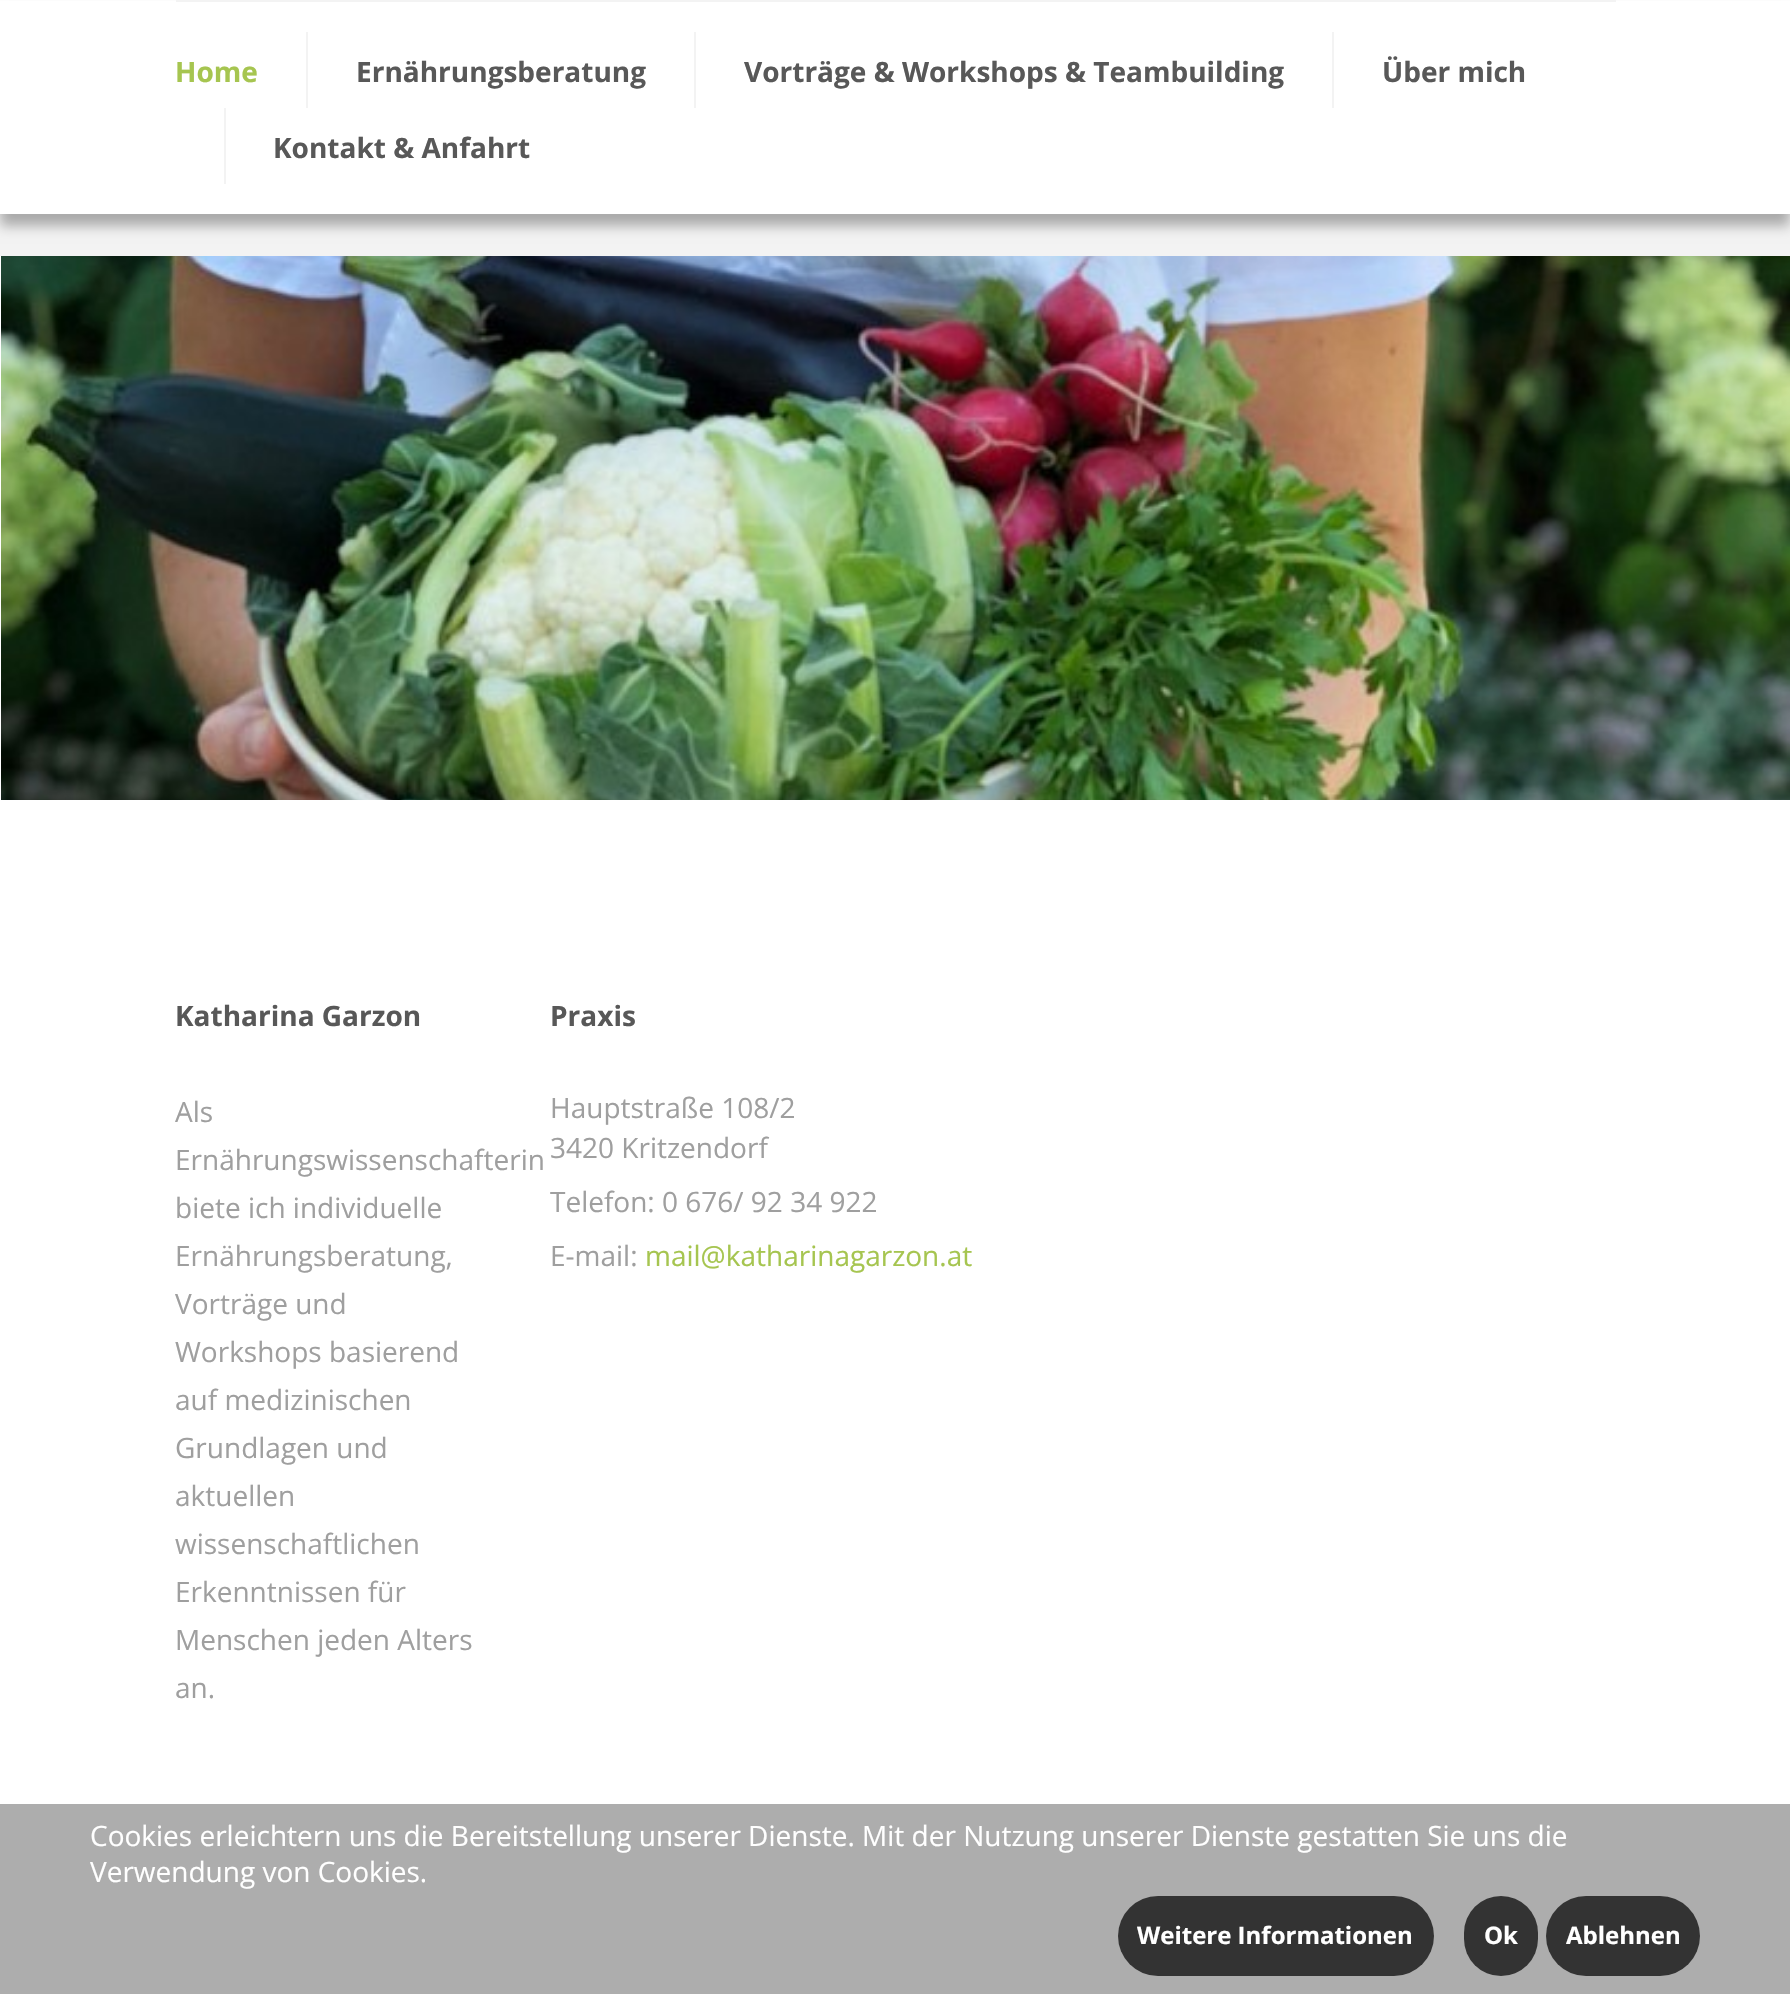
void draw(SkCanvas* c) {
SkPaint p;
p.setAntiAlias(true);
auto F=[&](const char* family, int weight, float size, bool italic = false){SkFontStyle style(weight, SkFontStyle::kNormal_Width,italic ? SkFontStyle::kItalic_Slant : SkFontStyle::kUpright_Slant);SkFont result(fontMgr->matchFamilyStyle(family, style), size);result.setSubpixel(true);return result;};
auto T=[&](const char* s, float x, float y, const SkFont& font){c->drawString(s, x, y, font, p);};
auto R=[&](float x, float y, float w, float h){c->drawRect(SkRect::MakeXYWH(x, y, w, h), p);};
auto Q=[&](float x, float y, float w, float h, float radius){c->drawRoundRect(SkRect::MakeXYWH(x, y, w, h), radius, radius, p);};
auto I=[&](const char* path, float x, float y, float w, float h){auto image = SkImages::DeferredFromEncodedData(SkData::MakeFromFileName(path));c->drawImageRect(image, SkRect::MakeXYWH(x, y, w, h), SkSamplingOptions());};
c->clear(0xffffffff);
p.setColor(0xfff3f3f3);
R(0,214,1790,42);
p.setColor(0x4d000000);
p.setMaskFilter(SkMaskFilter::MakeBlur(kNormal_SkBlurStyle, 6));
c->drawRect(SkRect::MakeXYWH(0,12,1790,214),p);
p.setMaskFilter(nullptr);
p.setColor(0xffffffff);
R(0,1,1790,213);
p.setColor(0xfff3f3f3);
R(176,0,1440,2);
auto f1 = F("Open Sans",700,28);
p.setColor(0xffa6c550);
T("Home",175,82,f1);
p.setColor(0xfff3f3f3);
R(306,32,2,76);
p.setColor(0xff585858);
T("Ernährungsberatung",356,82,f1);
p.setColor(0xfff3f3f3);
R(694,32,2,76);
p.setColor(0xff585858);
T("Vorträge & Workshops & Teambuilding",744,82,f1);
p.setColor(0xfff3f3f3);
R(1332,32,2,76);
p.setColor(0xff585858);
T("Über mich",1382,82,f1);
p.setColor(0xfff3f3f3);
R(224,108,2,76);
p.setColor(0xff585858);
T("Kontakt & Anfahrt",273,158,f1);
I("1.png",1,256,1789,544);
T("Katharina Garzon",175,1026,f1);
auto f2 = F("Open Sans",400,28);
p.setColor(0xff9f9f9f);
T("Als",175,1122,f2);
T("Ernährungswissenschafterin",175,1170,f2);
T("biete ich individuelle",175,1218,f2);
T("Ernährungsberatung,",175,1266,f2);
T("Vorträge und",175,1314,f2);
T("Workshops basierend",175,1362,f2);
T("auf medizinischen",175,1410,f2);
T("Grundlagen und",175,1458,f2);
T("aktuellen",175,1506,f2);
T("wissenschaftlichen",175,1554,f2);
T("Erkenntnissen für",175,1602,f2);
T("Menschen jeden Alters",175,1650,f2);
T("an.",175,1698,f2);
p.setColor(0xff585858);
T("Praxis",550,1026,f1);
p.setColor(0xff9f9f9f);
T("Hauptstraße 108/2",550,1118,f2);
T("3420 Kritzendorf",550,1158,f2);
T("Telefon: 0 676/ 92 34 922",550,1212,f2);
T("E-mail:",550,1266,f2);
p.setColor(0xffa6c550);
T("mail@katharinagarzon.at",645,1266,f2);
p.setColor(0xffadadad);
R(0,1804,1790,190);
p.setColor(0xffffffff);
T("Cookies erleichtern uns die Bereitstellung unserer Dienste. Mit der Nutzung unserer Dienste gestatten Sie uns die",90,1846,f2);
T("Verwendung von Cookies.",90,1882,f2);
p.setColor(0xff333333);
Q(1118,1896,316,80,40);
auto f3 = F("Open Sans",700,24);
p.setColor(0xffffffff);
T("Weitere Informationen",1137,1944,f3);
p.setColor(0xff333333);
Q(1464,1896,74,80,37);
p.setColor(0xffffffff);
T("Ok",1484,1944,f3);
p.setColor(0xff333333);
Q(1546,1896,154,80,40);
p.setColor(0xffffffff);
T("Ablehnen",1566,1944,f3);
}
